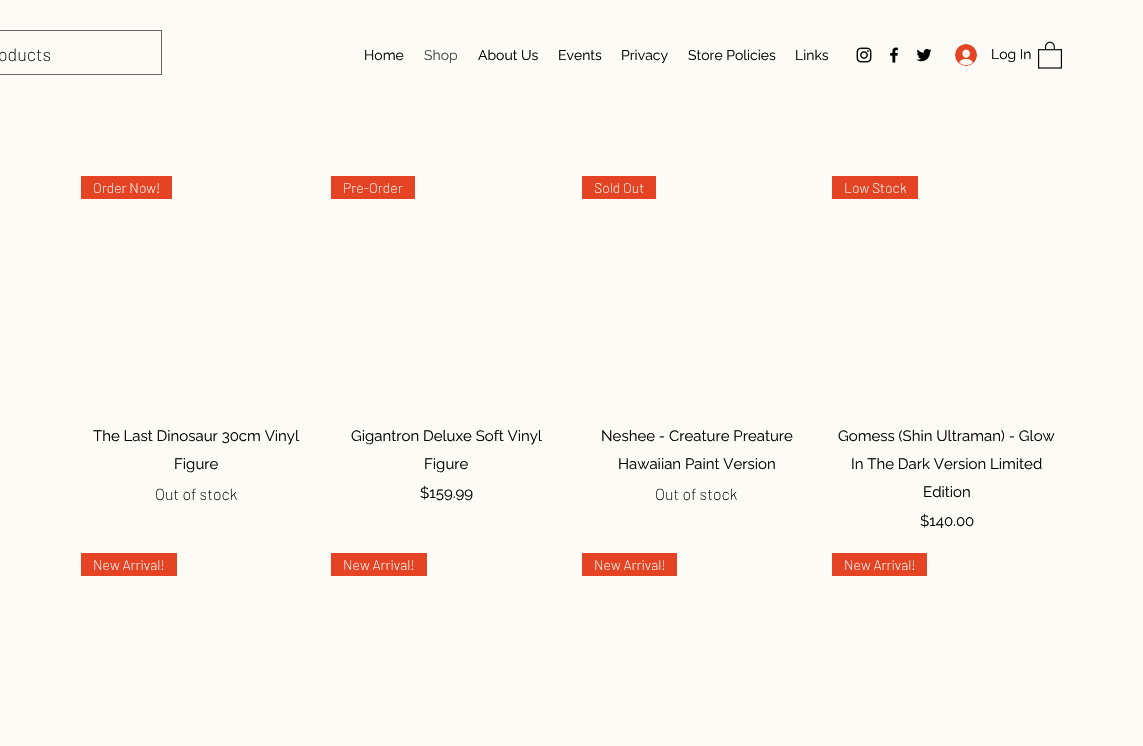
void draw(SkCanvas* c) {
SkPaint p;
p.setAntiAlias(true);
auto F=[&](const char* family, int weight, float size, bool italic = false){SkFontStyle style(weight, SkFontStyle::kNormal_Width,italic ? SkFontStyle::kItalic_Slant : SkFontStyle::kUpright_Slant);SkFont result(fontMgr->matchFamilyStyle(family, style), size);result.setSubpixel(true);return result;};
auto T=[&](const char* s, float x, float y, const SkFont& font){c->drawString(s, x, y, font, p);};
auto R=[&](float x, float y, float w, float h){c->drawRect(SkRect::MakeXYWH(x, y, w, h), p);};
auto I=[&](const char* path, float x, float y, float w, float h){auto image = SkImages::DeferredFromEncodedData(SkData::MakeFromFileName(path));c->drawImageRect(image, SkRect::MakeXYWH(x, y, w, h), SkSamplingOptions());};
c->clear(0xfffdfbf5);
p.setStroke(true);
p.setStrokeWidth(1);
p.setColor(0xff656462);
c->drawRect(SkRect::MakeXYWH(-.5,30.5,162,44),p);
auto f1 = F("Barlow",200,18);
p.setStroke(false);
p.setColor(0xff000000);
T("oducts",-2,61,f1);
auto f2 = F("Raleway",400,14);
T("Home",364,60,f2);
p.setColor(0xff414c4b);
T("Shop",424,60,f2);
p.setColor(0xff000000);
T("About Us",478,60,f2);
T("Events",558,60,f2);
T("Privacy",621,60,f2);
T("Store Policies",688,60,f2);
T("Links",795,60,f2);
I("1.png",856,47,16,16);
I("2.png",890,47,9,16);
I("3.png",916,48,16,14);
I("4.png",955,44,22,22);
T("Log In",991,59,f2);
I("5.png",1038,41,24,28);
p.setColor(0xffe44424);
R(81,176,91,23);
auto f3 = F("Barlow",200,14);
p.setColor(0xfffdfbf5);
T("Order Now!",93,193,f3);
auto f4 = F("Raleway",400,15);
p.setColor(0xff000000);
T("The Last Dinosaur 30cm Vinyl",93,441,f4);
T("Figure",174,469,f4);
auto f5 = F("Barlow",200,16);
T("Out of stock",155,500,f5);
p.setColor(0xffe44424);
R(331,176,84,23);
p.setColor(0xfffdfbf5);
T("Pre-Order",343,193,f3);
p.setColor(0xff000000);
T("Gigantron Deluxe Soft Vinyl",351,441,f4);
T("Figure",424,469,f4);
T("$159.99",420,498,f4);
p.setColor(0xffe44424);
R(582,176,74,23);
p.setColor(0xfffdfbf5);
T("Sold Out",594,193,f3);
p.setColor(0xff000000);
T("Neshee - Creature Preature",601,441,f4);
T("Hawaiian Paint Version",618,469,f4);
T("Out of stock",655,500,f5);
p.setColor(0xffe44424);
R(832,176,86,23);
p.setColor(0xfffdfbf5);
T("Low Stock",844,193,f3);
p.setColor(0xff000000);
T("Gomess (Shin Ultraman) - Glow",838,441,f4);
T("In The Dark Version Limited",851,469,f4);
T("Edition",923,497,f4);
T("$140.00",920,526,f4);
p.setColor(0xffe44424);
R(81,553,96,23);
p.setColor(0xfffdfbf5);
T("New Arrival!",93,570,f3);
p.setColor(0xffe44424);
R(331,553,96,23);
p.setColor(0xfffdfbf5);
T("New Arrival!",343,570,f3);
p.setColor(0xffe44424);
R(582,553,95,23);
p.setColor(0xfffdfbf5);
T("New Arrival!",594,570,f3);
p.setColor(0xffe44424);
R(832,553,95,23);
p.setColor(0xfffdfbf5);
T("New Arrival!",844,570,f3);
}
